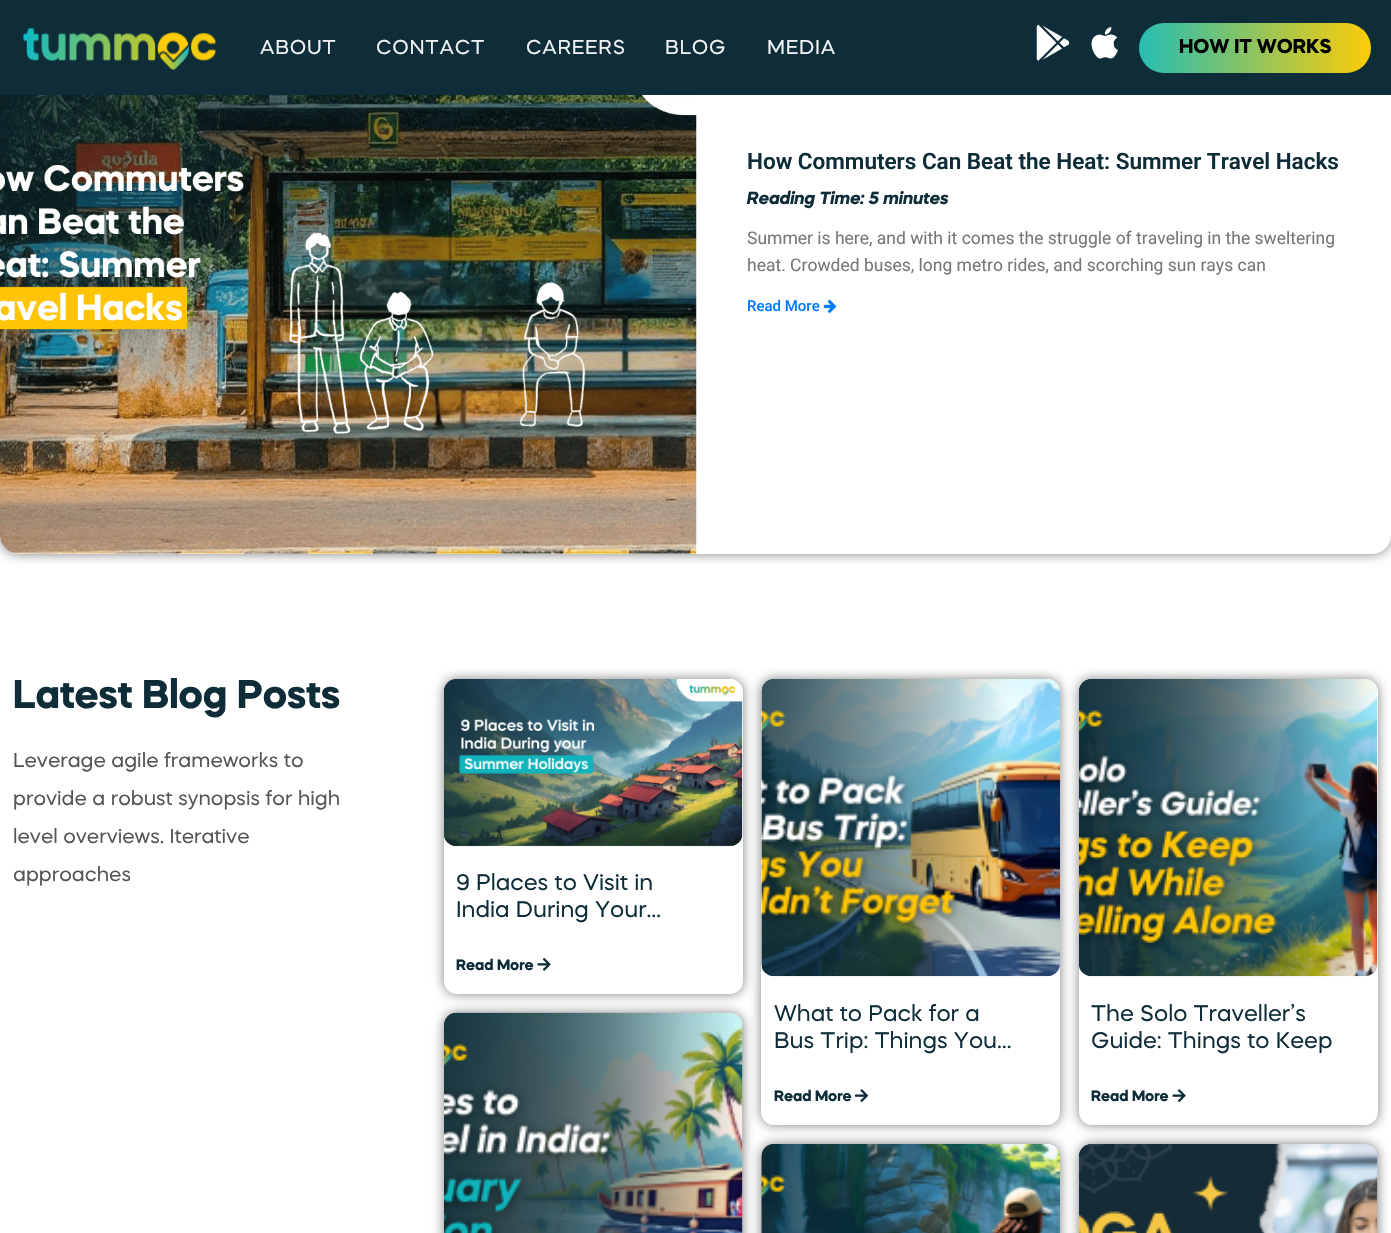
void draw(SkCanvas* c) {
SkPaint p;
p.setAntiAlias(true);
auto F=[&](const char* family, int weight, float size, bool italic = false){SkFontStyle style(weight, SkFontStyle::kNormal_Width,italic ? SkFontStyle::kItalic_Slant : SkFontStyle::kUpright_Slant);SkFont result(fontMgr->matchFamilyStyle(family, style), size);result.setSubpixel(true);return result;};
auto T=[&](const char* s, float x, float y, const SkFont& font){c->drawString(s, x, y, font, p);};
auto L=[&](const char* s, float x, float y, const SkFont& font, const SkPaint& ink, float letter, float word){std::vector<SkGlyphID> glyphs(font.countText(s, strlen(s), SkTextEncoding::kUTF8));std::vector<float> xs(glyphs.size());font.textToGlyphs(s, strlen(s), SkTextEncoding::kUTF8, glyphs);font.getXPos(glyphs, xs, x);float extra = 0;for (size_t i = 0; i < glyphs.size(); i++) {xs[i] += extra;extra += letter + word * (glyphs[i] == font.unicharToGlyph(' '));}c->drawTextBlob(SkTextBlob::MakeFromPosHGlyphs(glyphs, xs, y, font), 0, 0, ink);};
auto R=[&](float x, float y, float w, float h){c->drawRect(SkRect::MakeXYWH(x, y, w, h), p);};
auto Q=[&](float x, float y, float w, float h, float radius){c->drawRoundRect(SkRect::MakeXYWH(x, y, w, h), radius, radius, p);};
auto I=[&](const char* path, float x, float y, float w, float h){auto image = SkImages::DeferredFromEncodedData(SkData::MakeFromFileName(path));c->drawImageRect(image, SkRect::MakeXYWH(x, y, w, h), SkSamplingOptions());};
auto P=[&](const char* data, bool evenOdd = false){SkPath result = *SkParsePath::FromSVGString(data);if (evenOdd) result.setFillType(SkPathFillType::kEvenOdd);return result;};
c->clear(0xffffffff);
c->save();
c->clipPath(P("M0 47h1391v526h-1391zm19 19h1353c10.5 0 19 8.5 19 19v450c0 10.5-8.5 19-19 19h-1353c-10.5 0-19-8.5-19-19v-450c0-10.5 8.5-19 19-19z",true),true);
p.setColor(0x80000000);
p.setMaskFilter(SkMaskFilter::MakeBlur(kNormal_SkBlurStyle, 6));
c->drawRoundRect(SkRect::MakeXYWH(0,66,1391,488),19,19,p);
p.setMaskFilter(nullptr);
c->restore();
p.setColor(0xff0e2d39);
R(0,0,1391,95);
I("1.png",23,28,194,42);
auto f1 = F("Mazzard",400,20);
p.setColor(0xfff0f2f3);
L("ABOUT",260,54,f1,p,.75,0);
L("CONTACT",376,54,f1,p,.75,0);
L("CAREERS",526,54,f1,p,.75,0);
L("BLOG",665,54,f1,p,.75,0);
L("MEDIA",767,54,f1,p,.75,0);
I("2.png",1036,24,34,37);
I("3.png",1091,27,27,32);
{
const SkColor colors[] = {0xff25bdb3,0xfffccc08};
const float stops[] = {0,1};
const SkPoint ends[] = {{1139,48}, {1371,47}};
p.setShader(SkGradientShader::MakeLinear(ends, colors, stops, 2, SkTileMode::kClamp));
p.setAlpha(255);
}
Q(1139,23,232,50,25);
auto f2 = F("Mazzard",700,20);
p.setShader(nullptr);
p.setColor(0xff000000);
T("HOW IT WORKS",1179,53,f2);
I("4.png",0,95,697,459);
auto f3 = F("Roboto",600,22.5);
p.setColor(0xff0e2d39);
T("How Commuters Can Beat the Heat: Summer Travel Hacks",747,169,f3);
auto f4 = F("Mazzard",700,17.5,true);
T("Reading Time: 5 minutes",747,204,f4);
auto f5 = F("Roboto",400,17.5);
p.setColor(0xff777777);
T("Summer is here, and with it comes the struggle of traveling in the sweltering",747,244,f5);
T("heat. Crowded buses, long metro rides, and scorching sun rays can",747,271,f5);
auto f6 = F("Roboto",500,15);
p.setColor(0xff007bff);
T("Read More",747,311,f6);
I("5.png",823,299,14,14);
auto f7 = F("Mazzard",700,40);
p.setColor(0xff0e2d39);
T("Latest Blog Posts",13,708,f7);
p.setColor(0xff555555);
T("Leverage agile frameworks to",13,767,f1);
T("provide a robust synopsis for high",13,805,f1);
T("level overviews. Iterative",13,843,f1);
T("approaches",13,881,f1);
c->save();
c->clipPath(P("M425 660h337v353h-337zm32 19h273c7 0 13 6 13 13v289c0 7-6 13-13 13h-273c-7 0-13-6-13-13v-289c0-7 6-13 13-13z",true),true);
p.setColor(0x80000000);
p.setMaskFilter(SkMaskFilter::MakeBlur(kNormal_SkBlurStyle, 6));
c->drawRoundRect(SkRect::MakeXYWH(444,679,299,315),13,13,p);
p.setMaskFilter(nullptr);
c->restore();
c->save();
c->clipPath(P("M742 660h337v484h-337zm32 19h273c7 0 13 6 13 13v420c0 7-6 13-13 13h-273c-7 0-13-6-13-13v-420c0-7 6-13 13-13z",true),true);
p.setMaskFilter(SkMaskFilter::MakeBlur(kNormal_SkBlurStyle, 6));
c->drawRoundRect(SkRect::MakeXYWH(761,679,299,446),13,13,p);
p.setMaskFilter(nullptr);
c->restore();
I("6.png",444,679,299,168);
auto f8 = F("Mazzard",400,22.5);
p.setColor(0xff0e2d39);
T("9 Places to Visit in",456,890,f8);
T("India During Your…",456,917,f8);
auto f9 = F("Mazzard",700,15);
T("Read More",456,970,f9);
I("7.png",537,958,14,13);
p.setColor(0x80000000);
p.setMaskFilter(SkMaskFilter::MakeBlur(kNormal_SkBlurStyle, 6));
c->drawRoundRect(SkRect::MakeXYWH(444,1013,299,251),13,13,p);
p.setMaskFilter(nullptr);
p.setMaskFilter(SkMaskFilter::MakeBlur(kNormal_SkBlurStyle, 6));
c->drawRoundRect(SkRect::MakeXYWH(761,1144,299,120),13,13,p);
p.setMaskFilter(nullptr);
I("8.png",444,1012,299,221);
I("9.png",761,679,299,298);
p.setColor(0xff0e2d39);
T("What to Pack for a",774,1021,f8);
T("Bus Trip: Things You…",774,1048,f8);
T("Read More",774,1101,f9);
I("10.png",855,1089,14,13);
c->save();
c->clipPath(P("M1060 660h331v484h-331zm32 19h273c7 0 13 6 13 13v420c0 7-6 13-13 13h-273c-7 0-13-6-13-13v-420c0-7 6-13 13-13z",true),true);
p.setColor(0x80000000);
p.setMaskFilter(SkMaskFilter::MakeBlur(kNormal_SkBlurStyle, 6));
c->drawRoundRect(SkRect::MakeXYWH(1079,679,299,446),13,13,p);
p.setMaskFilter(nullptr);
c->restore();
I("11.png",1079,679,299,298);
p.setColor(0xff0e2d39);
T("The Solo Traveller’s",1091,1021,f8);
T("Guide: Things to Keep",1091,1048,f8);
T("Read More",1091,1101,f9);
I("12.png",1172,1089,14,13);
I("13.png",761,1144,299,89);
p.setColor(0x80000000);
p.setMaskFilter(SkMaskFilter::MakeBlur(kNormal_SkBlurStyle, 6));
c->drawRoundRect(SkRect::MakeXYWH(1079,1144,299,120),13,13,p);
p.setMaskFilter(nullptr);
I("14.png",1079,1144,299,89);
}
